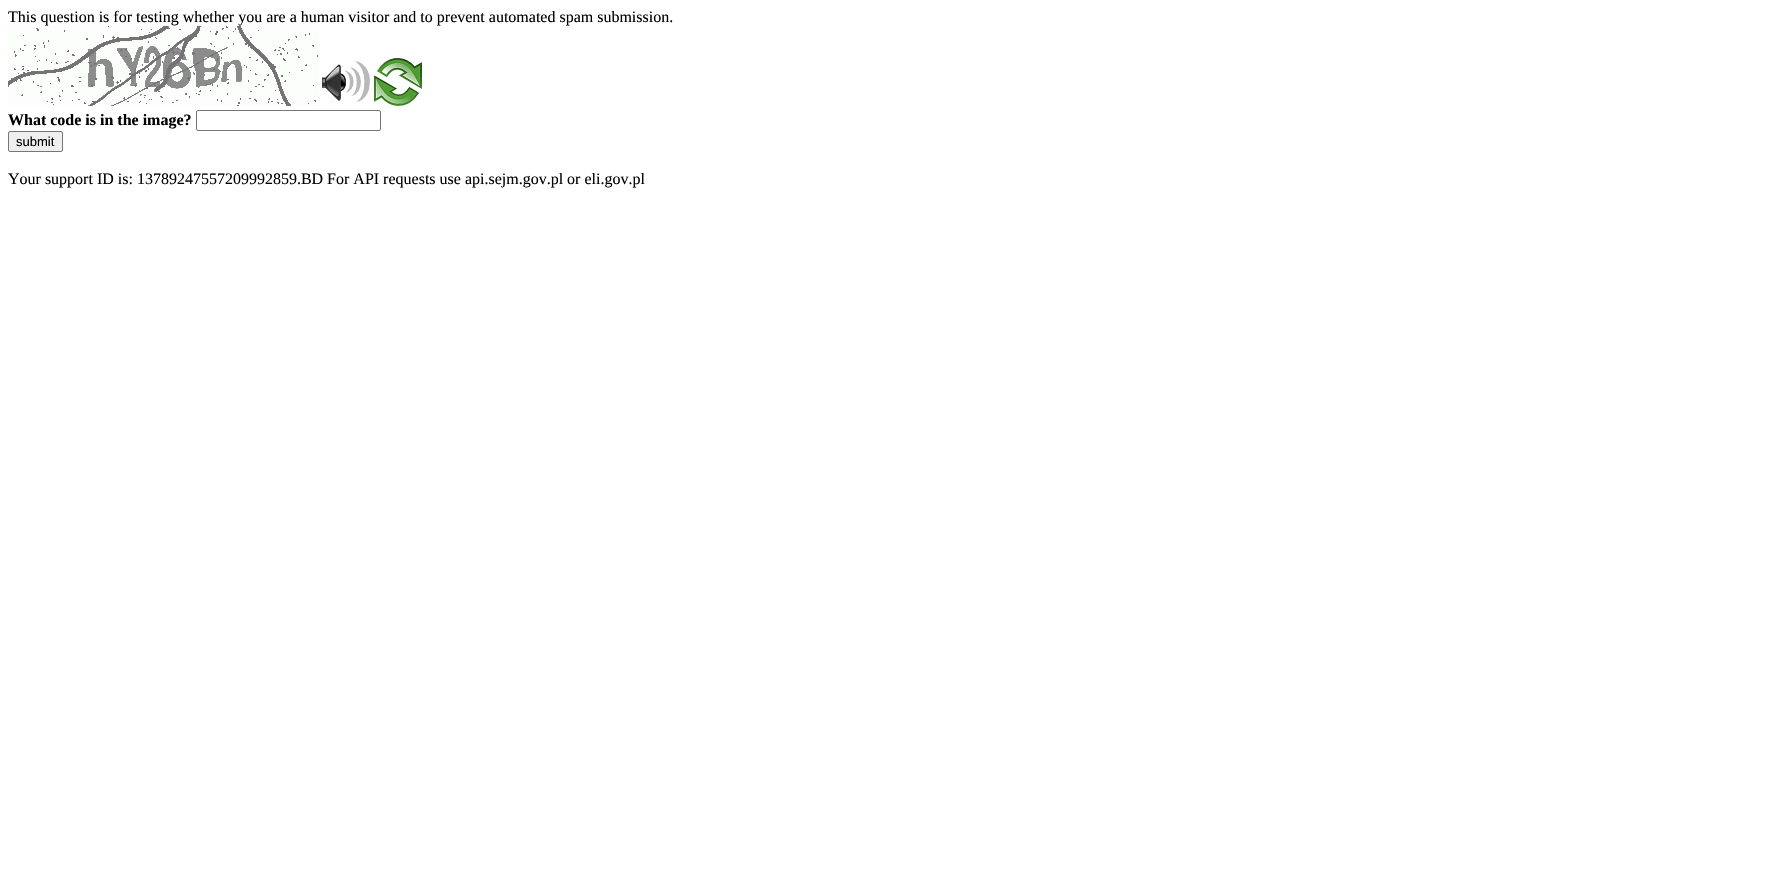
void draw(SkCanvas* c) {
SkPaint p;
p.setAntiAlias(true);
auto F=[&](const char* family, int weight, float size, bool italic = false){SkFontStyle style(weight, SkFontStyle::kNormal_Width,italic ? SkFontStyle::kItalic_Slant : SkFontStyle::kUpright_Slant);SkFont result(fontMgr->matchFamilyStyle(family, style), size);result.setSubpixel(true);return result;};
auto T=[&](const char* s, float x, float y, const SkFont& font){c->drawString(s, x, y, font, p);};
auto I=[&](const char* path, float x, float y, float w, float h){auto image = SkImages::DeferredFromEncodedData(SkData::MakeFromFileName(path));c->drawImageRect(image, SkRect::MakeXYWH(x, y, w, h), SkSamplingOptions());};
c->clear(0xffffffff);
auto f1 = F("Liberation Serif",400,16);
p.setColor(0xff000000);
T("This question is for testing whether you are a human visitor and to prevent automated spam submission.",8,22,f1);
I("1.png",8,26,310,80);
I("2.png",322,61,48,41);
I("3.png",374,58,48,48);
auto f2 = F("Liberation Serif",700,16);
T("What code is in the image?",8,125,f2);
p.setStroke(true);
p.setStrokeWidth(1);
p.setColor(0xff767676);
c->drawRoundRect(SkRect::MakeXYWH(196.5,110.5,184,20),1.5,1.5,p);
p.setStroke(false);
p.setColor(0xffefefef);
c->drawRoundRect(SkRect::MakeXYWH(8.5,131.5,54,20),1.5,1.5,p);
p.setStroke(true);
p.setColor(0xff767676);
c->drawRoundRect(SkRect::MakeXYWH(8.5,131.5,54,20),1.5,1.5,p);
auto f3 = F("Liberation Sans",400,13);
p.setStroke(false);
p.setColor(0xff000000);
T("submit",16,146,f3);
T("Your support ID is: 13789247557209992859.BD For API requests use api.sejm.gov.pl or eli.gov.pl",8,184,f1);
}
